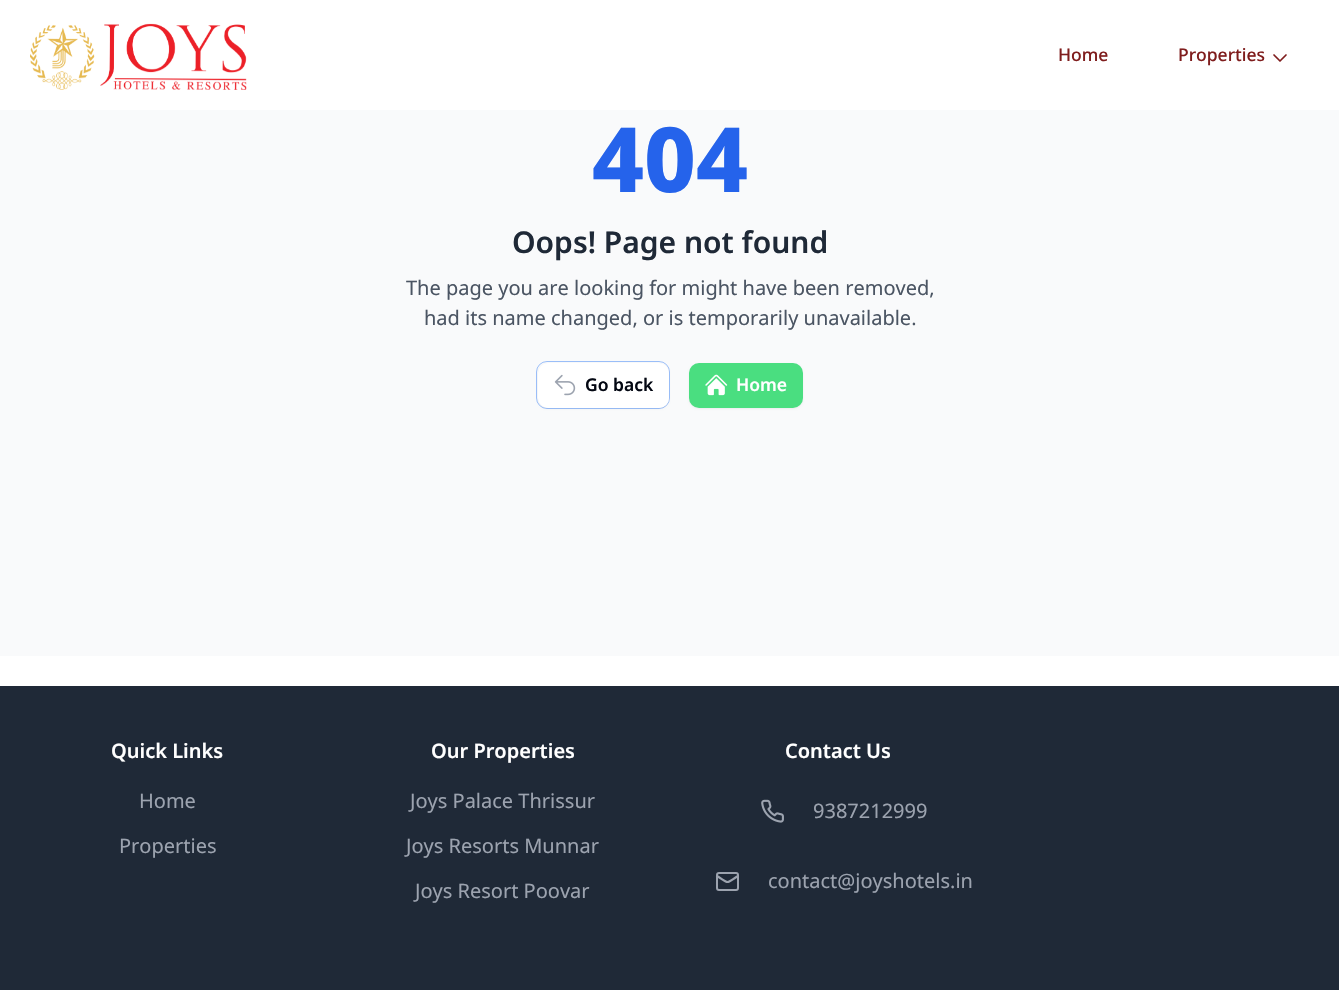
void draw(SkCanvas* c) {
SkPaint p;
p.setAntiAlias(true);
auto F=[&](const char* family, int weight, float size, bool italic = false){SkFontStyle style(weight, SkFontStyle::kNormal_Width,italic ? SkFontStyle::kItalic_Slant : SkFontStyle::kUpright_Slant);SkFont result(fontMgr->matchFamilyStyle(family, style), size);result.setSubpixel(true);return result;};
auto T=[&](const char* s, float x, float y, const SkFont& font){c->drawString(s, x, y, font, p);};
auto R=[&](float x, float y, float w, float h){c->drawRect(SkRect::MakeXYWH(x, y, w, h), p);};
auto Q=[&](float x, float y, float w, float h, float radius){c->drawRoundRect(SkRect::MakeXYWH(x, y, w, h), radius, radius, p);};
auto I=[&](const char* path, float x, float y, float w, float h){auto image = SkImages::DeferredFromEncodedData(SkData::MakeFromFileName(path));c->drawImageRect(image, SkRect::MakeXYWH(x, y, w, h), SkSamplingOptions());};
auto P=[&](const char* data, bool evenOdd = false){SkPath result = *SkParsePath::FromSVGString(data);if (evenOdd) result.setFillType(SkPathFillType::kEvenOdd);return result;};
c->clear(0xffffffff);
I("1.png",30,23,217,67);
auto f1 = F("Noto Sans",500,17.5);
p.setColor(0xff7f1d1d);
T("Home",1058,61,f1);
T("Properties",1178,61,f1);
p.setStroke(true);
p.setStrokeWidth(1.7);
p.setStrokeCap(SkPaint::kRound_Cap);
p.setStrokeJoin(SkPaint::kRound_Join);
c->drawPath(P("M1286 55l-6 6l-6-6"),p);
p.setStroke(false);
p.setColor(0xfff9fafb);
R(0,110,1339,546);
auto f2 = F("Noto Sans",800,90);
p.setColor(0xff2563eb);
T("404",592,192,f2);
auto f3 = F("Noto Sans",600,30);
p.setColor(0xff1f2937);
T("Oops! Page not found",512,253,f3);
auto f4 = F("Noto Sans",400,20);
p.setColor(0xff4b5563);
T("The page you are looking for might have been removed,",406,295,f4);
T("had its name changed, or is temporarily unavailable.",424,325,f4);
p.setColor(0x0d000000);
p.setMaskFilter(SkMaskFilter::MakeBlur(kNormal_SkBlurStyle, 1));
c->drawRoundRect(SkRect::MakeXYWH(538,364,131,45),10,10,p);
p.setMaskFilter(nullptr);
p.setStroke(true);
p.setStrokeWidth(1);
p.setStrokeCap(SkPaint::kButt_Cap);
p.setStrokeJoin(SkPaint::kMiter_Join);
p.setColor(0x803b82f6);
c->drawRoundRect(SkRect::MakeXYWH(536.5,361.5,133,47),10.5,10.5,p);
p.setStroke(false);
p.setColor(0xffffffff);
Q(538,363,131,45,10);
I("2.png",554,374,22,22);
auto f5 = F("Noto Sans",600,17.5);
p.setColor(0xff030712);
T("Go back",585,391,f5);
p.setColor(0x0d000000);
p.setMaskFilter(SkMaskFilter::MakeBlur(kNormal_SkBlurStyle, 1));
c->drawRoundRect(SkRect::MakeXYWH(689,364,114,45),10,10,p);
p.setMaskFilter(nullptr);
p.setColor(0xff4ade80);
Q(689,363,114,45,10);
I("3.png",705,374,23,22);
p.setColor(0xffffffff);
T("Home",736,391,f5);
p.setColor(0xff1f2937);
R(0,686,1339,304);
auto f6 = F("Noto Sans",600,20);
p.setColor(0xffffffff);
T("Quick Links",111,758,f6);
p.setColor(0xff9ca3af);
T("Home",139,808,f4);
T("Properties",119,853,f4);
p.setColor(0xffffffff);
T("Our Properties",431,758,f6);
p.setColor(0xff9ca3af);
T("Joys Palace Thrissur",410,808,f4);
T("Joys Resorts Munnar",406,853,f4);
T("Joys Resort Poovar",415,898,f4);
p.setColor(0xffffffff);
T("Contact Us",785,758,f6);
I("4.png",761,799,23,24);
p.setColor(0xff9ca3af);
T("9387212999",813,818,f4);
p.setStroke(true);
p.setStrokeWidth(2);
c->drawRoundRect(SkRect::MakeXYWH(717,873,21,17),2,2,p);
p.setStrokeWidth(2.1);
p.setStrokeCap(SkPaint::kRound_Cap);
p.setStrokeJoin(SkPaint::kRound_Join);
c->drawPath(P("M738 876c-13 8-8 8-21 0"),p);
p.setStroke(false);
T("contact@joyshotels.in",768,888,f4);
}
